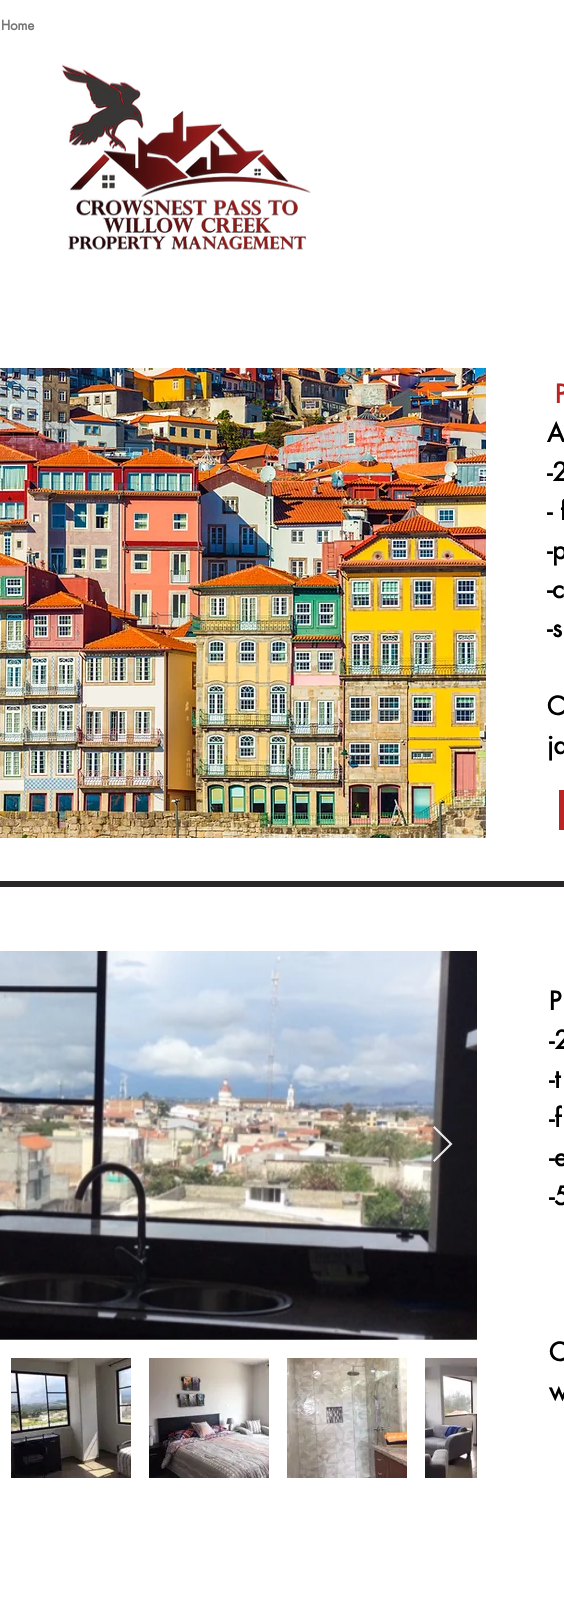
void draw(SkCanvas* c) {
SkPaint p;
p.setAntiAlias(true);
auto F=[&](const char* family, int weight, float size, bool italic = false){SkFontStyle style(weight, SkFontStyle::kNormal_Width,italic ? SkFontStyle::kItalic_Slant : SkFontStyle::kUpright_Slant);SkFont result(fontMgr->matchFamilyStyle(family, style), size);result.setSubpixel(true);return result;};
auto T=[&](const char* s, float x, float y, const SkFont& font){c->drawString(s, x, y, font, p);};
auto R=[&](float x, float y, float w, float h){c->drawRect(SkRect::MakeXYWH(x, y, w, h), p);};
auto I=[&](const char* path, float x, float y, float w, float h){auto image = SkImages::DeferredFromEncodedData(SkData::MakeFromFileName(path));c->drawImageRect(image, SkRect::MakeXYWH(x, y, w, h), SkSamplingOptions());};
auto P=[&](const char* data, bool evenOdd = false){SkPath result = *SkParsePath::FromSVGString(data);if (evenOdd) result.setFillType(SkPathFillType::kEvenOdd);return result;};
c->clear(0xffffffff);
auto f1 = F("futura",700,13);
p.setColor(0xff757575);
T("Home",1,30,f1);
I("1.png",62,64,249,186);
I("2.png",0,368,486,470);
auto f2 = F("futura",700,25);
p.setColor(0xffbb2423);
T("P",555,403,f2);
p.setColor(0xff000000);
T("A",547,442,f2);
T("-2",547,481,f2);
T("- f",547,520,f2);
T("-p",547,559,f2);
T("-c",547,598,f2);
T("-s",547,637,f2);
T("C",547,715,f2);
T("ja",547,754,f2);
p.setColor(0xffbb2423);
R(559,790,5,40);
p.setColor(0xff282626);
R(0,881,564,6);
I("3.png",0,951,477,389);
p.setColor(0xe6ffffff);
c->drawPath(P("M433 1127.5l1.5-1.5l18 18l-18 18l-1.5-1.5l16.5-16.5z"),p);
I("4.png",11,1358,120,120);
I("5.png",149,1358,120,120);
I("6.png",287,1358,120,120);
I("7.png",425,1358,52,120);
p.setColor(0xff000000);
T("P",549,1010,f2);
T("-2",549,1049,f2);
T("-t",549,1088,f2);
T("-f",549,1127,f2);
T("-e",549,1166,f2);
T("-5",549,1205,f2);
T("C",549,1361,f2);
T("w",549,1400,f2);
}
